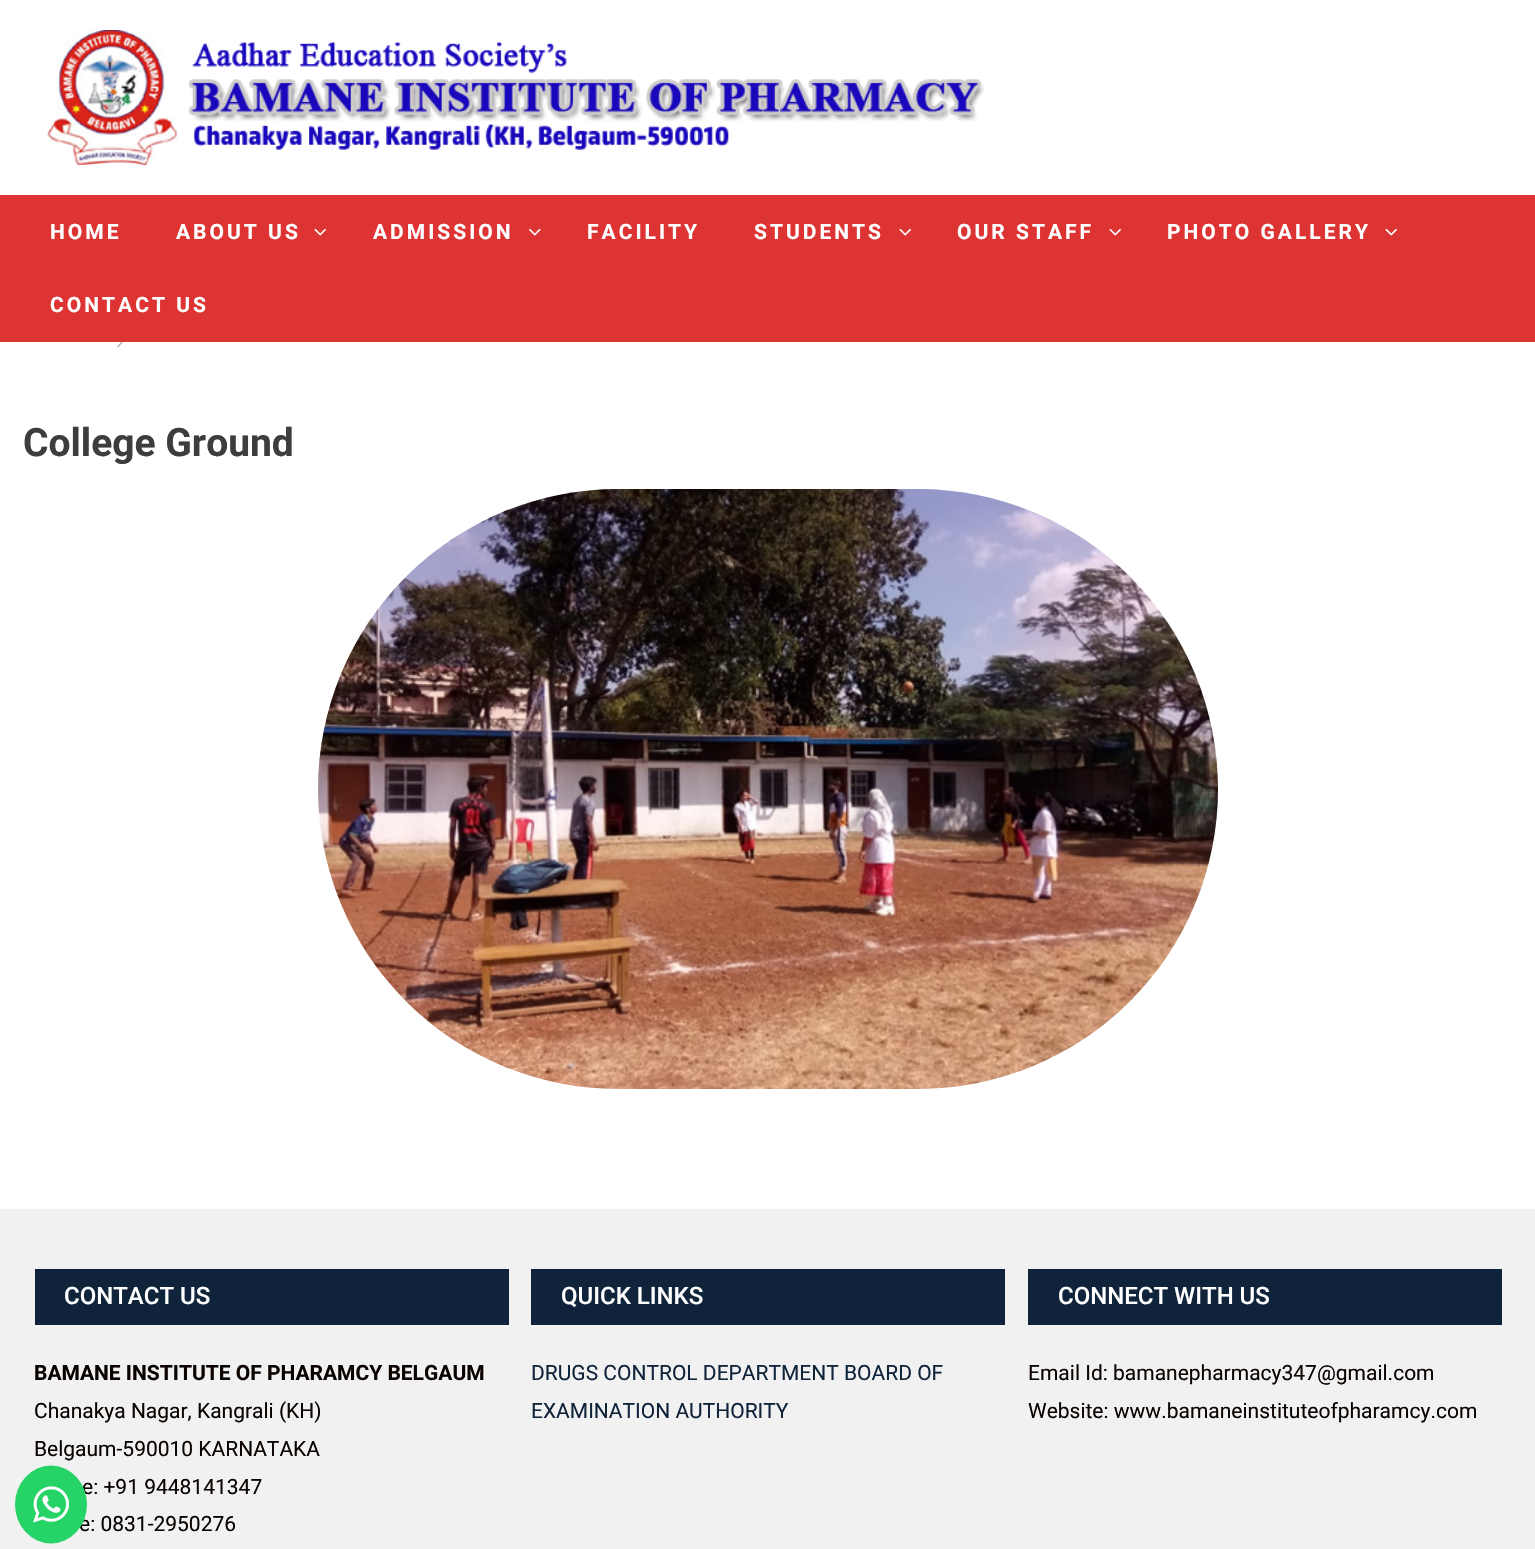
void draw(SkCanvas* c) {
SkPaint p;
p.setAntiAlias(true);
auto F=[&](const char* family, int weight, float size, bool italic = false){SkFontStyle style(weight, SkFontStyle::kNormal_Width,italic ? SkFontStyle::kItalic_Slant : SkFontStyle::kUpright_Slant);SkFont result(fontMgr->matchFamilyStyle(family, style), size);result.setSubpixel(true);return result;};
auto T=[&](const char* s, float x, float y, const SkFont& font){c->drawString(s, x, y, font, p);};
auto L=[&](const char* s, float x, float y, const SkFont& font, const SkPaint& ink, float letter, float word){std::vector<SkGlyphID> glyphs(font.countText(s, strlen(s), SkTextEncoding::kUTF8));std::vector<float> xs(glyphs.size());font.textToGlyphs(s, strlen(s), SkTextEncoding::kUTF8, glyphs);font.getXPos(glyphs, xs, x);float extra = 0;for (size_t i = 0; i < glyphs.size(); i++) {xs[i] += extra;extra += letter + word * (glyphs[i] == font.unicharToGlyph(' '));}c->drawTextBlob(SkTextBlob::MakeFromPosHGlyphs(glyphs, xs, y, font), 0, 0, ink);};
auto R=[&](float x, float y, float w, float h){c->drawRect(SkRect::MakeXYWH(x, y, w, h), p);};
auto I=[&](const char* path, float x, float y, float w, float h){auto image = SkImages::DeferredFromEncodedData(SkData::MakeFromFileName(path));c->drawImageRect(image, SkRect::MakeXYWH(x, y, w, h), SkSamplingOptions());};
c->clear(0xffffffff);
I("1.png",47,30,938,135);
p.setColor(0xffdd3333);
R(0,195,1535,147);
auto f1 = F("Roboto",700,21);
p.setColor(0xffffffff);
L("HOME",50,239,f1,p,3,0);
L("ABOUT US",176,239,f1,p,3,0);
I("2.png",314,228,13,8);
L("ADMISSION",373,239,f1,p,3,0);
I("3.png",528,228,13,8);
L("FACILITY",587,239,f1,p,3,0);
L("STUDENTS",754,239,f1,p,3,0);
I("2.png",899,228,13,8);
L("OUR STAFF",957,239,f1,p,3,0);
I("2.png",1109,228,13,8);
L("PHOTO GALLERY",1167,239,f1,p,3,0);
I("2.png",1385,228,13,8);
L("CONTACT US",50,312,f1,p,3,0);
I("4.png",117,342,6,6);
auto f2 = F("Roboto",700,39);
p.setColor(0xff3d3d3d);
T("College Ground",23,456,f2);
I("5.png",318,489,900,600);
p.setColor(0xfff1f1f1);
R(0,1209,1535,340);
p.setColor(0xff0f233a);
R(35,1269,474,56);
auto f3 = F("Roboto",500,24);
p.setColor(0xffffffff);
T("CONTACT US",64,1304,f3);
p.setColor(0xff0a0300);
T("BAMANE INSTITUTE OF PHARAMCY BELGAUM",34,1380,f1);
auto f4 = F("Roboto",400,21);
T("Chanakya Nagar, Kangrali (KH)",34,1418,f4);
T("Belgaum-590010 KARNATAKA",34,1456,f4);
T("e: +91 9448141347",82,1494,f4);
T("e: 0831-2950276",79,1531,f4);
p.setColor(0xff0f233a);
R(531,1269,474,56);
p.setColor(0xffffffff);
T("QUICK LINKS",561,1304,f3);
p.setColor(0xff0f233a);
T("DRUGS CONTROL DEPARTMENT BOARD OF",531,1380,f4);
T("EXAMINATION AUTHORITY",531,1418,f4);
R(1028,1269,474,56);
p.setColor(0xffffffff);
T("CONNECT WITH US",1058,1304,f3);
p.setColor(0xff0a0300);
T("Email Id: bamanepharmacy347@gmail.com",1028,1380,f4);
T("Website: www.bamaneinstituteofpharamcy.com",1028,1418,f4);
p.setColor(0xff25d366);
c->drawOval(SkRect::MakeXYWH(15,1465.5,72,78),p);
I("6.png",33,1486,36,37);
}
